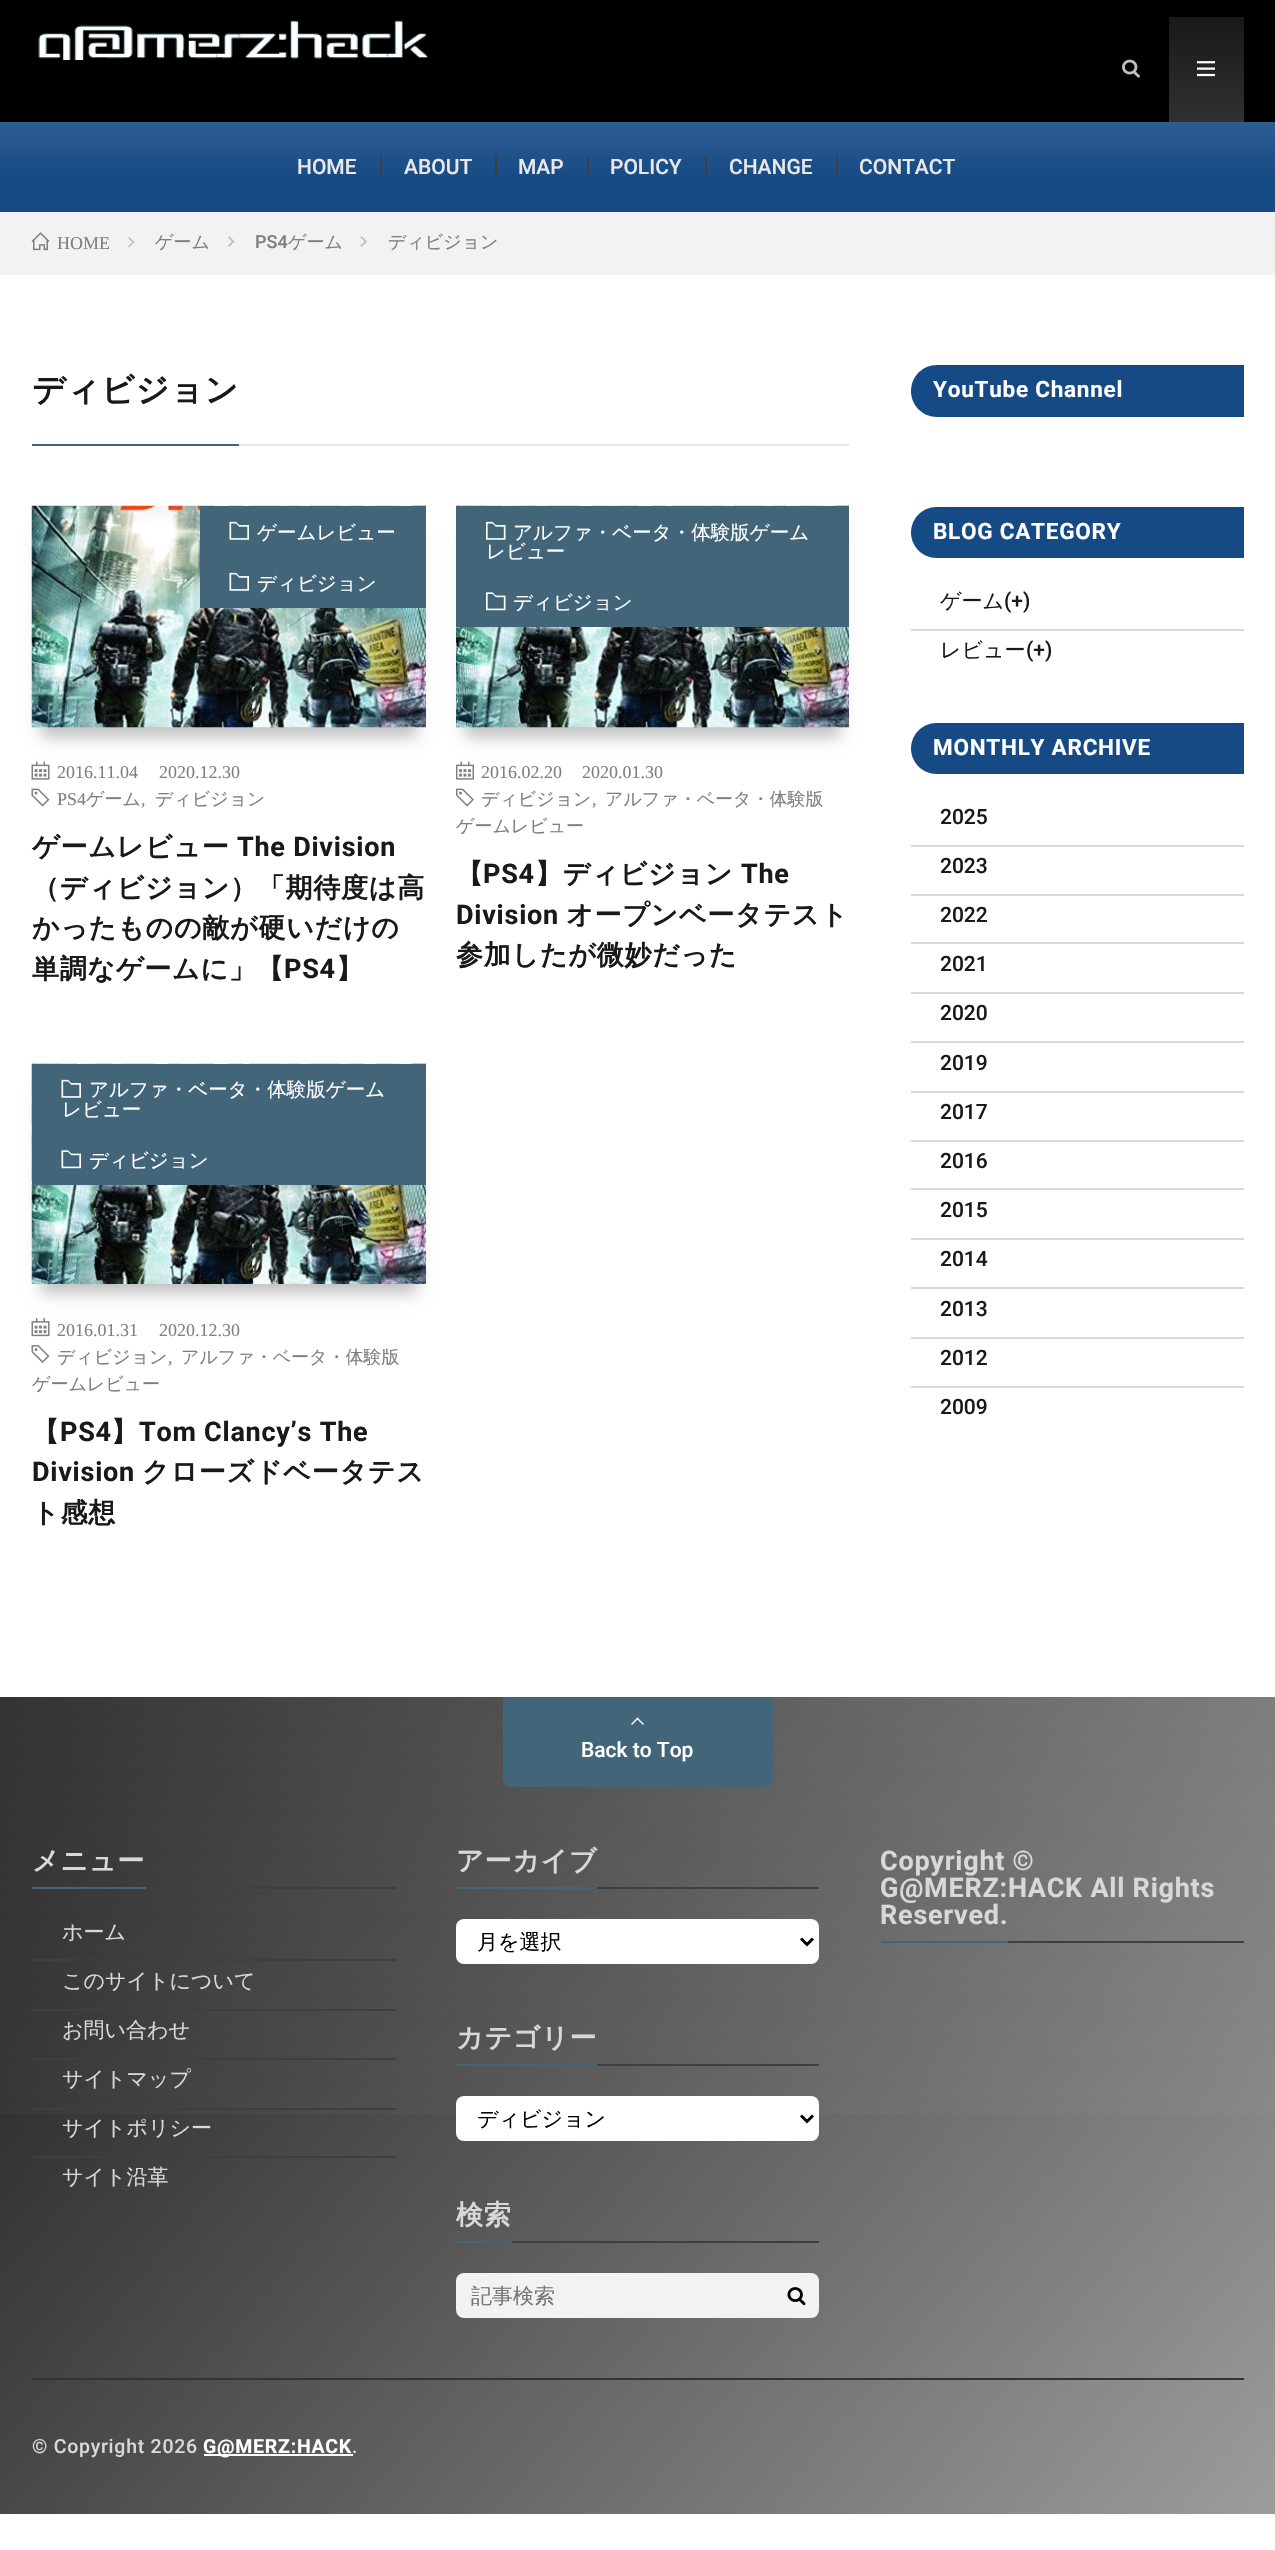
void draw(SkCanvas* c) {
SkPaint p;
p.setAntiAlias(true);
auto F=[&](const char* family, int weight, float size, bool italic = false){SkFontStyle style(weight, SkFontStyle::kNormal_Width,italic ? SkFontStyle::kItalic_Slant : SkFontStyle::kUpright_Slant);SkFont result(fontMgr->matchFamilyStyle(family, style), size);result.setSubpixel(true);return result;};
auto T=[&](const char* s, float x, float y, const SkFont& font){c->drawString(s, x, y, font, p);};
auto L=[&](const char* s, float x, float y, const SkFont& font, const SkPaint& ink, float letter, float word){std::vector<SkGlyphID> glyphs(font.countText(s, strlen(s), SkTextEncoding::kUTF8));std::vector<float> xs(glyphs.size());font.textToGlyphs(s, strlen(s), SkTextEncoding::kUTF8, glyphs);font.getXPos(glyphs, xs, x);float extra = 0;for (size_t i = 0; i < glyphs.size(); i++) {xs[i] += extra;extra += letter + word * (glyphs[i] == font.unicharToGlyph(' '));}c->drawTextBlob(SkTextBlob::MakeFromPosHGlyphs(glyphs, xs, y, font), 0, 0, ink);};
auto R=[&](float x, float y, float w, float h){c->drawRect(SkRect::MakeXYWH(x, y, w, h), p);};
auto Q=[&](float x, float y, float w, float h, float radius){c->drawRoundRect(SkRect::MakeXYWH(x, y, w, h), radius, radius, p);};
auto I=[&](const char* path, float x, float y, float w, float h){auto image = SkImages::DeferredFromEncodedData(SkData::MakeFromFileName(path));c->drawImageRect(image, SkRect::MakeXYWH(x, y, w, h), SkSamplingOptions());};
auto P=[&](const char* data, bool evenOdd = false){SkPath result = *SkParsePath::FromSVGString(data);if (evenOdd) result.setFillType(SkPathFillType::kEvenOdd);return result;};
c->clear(0xffffffff);
p.setColor(0xff000000);
R(0,0,1275,122);
I("1.png",38,20,391,40);
I("2.png",1122,59,18,19);
{
const SkColor colors[] = {0xff191919,0xff303030};
const float stops[] = {0,1};
const SkPoint ends[] = {{1206,17}, {1206,122}};
p.setShader(SkGradientShader::MakeLinear(ends, colors, stops, 2, SkTileMode::kClamp));
p.setAlpha(255);
}
R(1169,17,75,105);
I("3.png",1197,61,18,16);
{
const SkColor colors[] = {0xff164a84,0xff164a84,0xff2d5c90};
const float stops[] = {0,.35,1};
const SkPoint ends[] = {{638,212}, {638,122}};
p.setShader(SkGradientShader::MakeLinear(ends, colors, stops, 3, SkTileMode::kClamp));
p.setAlpha(255);
}
R(0,122,1275,90);
auto f1 = F("Roboto",500,21);
p.setShader(nullptr);
p.setColor(0xffe8e8e8);
T("HOME",297,174,f1);
p.setColor(0xff3f3f3f);
R(380,156,2,21);
p.setColor(0xffe8e8e8);
T("ABOUT",404,174,f1);
p.setColor(0xff3f3f3f);
R(495,156,2,21);
p.setColor(0xffe8e8e8);
T("MAP",518,174,f1);
p.setColor(0xff3f3f3f);
R(587,156,2,21);
p.setColor(0xffe8e8e8);
T("POLICY",610,174,f1);
p.setColor(0xff3f3f3f);
R(705,156,2,21);
p.setColor(0xffe8e8e8);
T("CHANGE",729,174,f1);
p.setColor(0xff3f3f3f);
R(836,156,2,21);
p.setColor(0xffe8e8e8);
T("CONTACT",859,174,f1);
p.setColor(0xfff2f2f2);
R(0,212,1275,63);
I("4.png",31,232,19,19);
auto f2 = F("Liberation Serif",400,18);
p.setColor(0xff7f7f7f);
T("HOME",57,249,f2);
p.setColor(0xffbfbfbf);
c->drawPath(P("M129 237l5.5 5l-1 1.5l-5.5-5.5z"),p);
c->drawPath(P("M133.5 241l1 1l-5.5 5.5l-1-1z"),p);
auto f3 = F("WenQuanYi Zen Hei",500,18);
p.setColor(0xff7f7f7f);
T("ゲーム",155,248,f3);
p.setColor(0xffbfbfbf);
c->drawPath(P("M229 236l5.5 5.5l-1.5 1l-5-5z"),p);
c->drawPath(P("M233 240.5l1.5 1l-5.5 5.5l-1-1.5z"),p);
auto f4 = F("Roboto",500,18);
p.setColor(0xff7f7f7f);
T("PS4",255,248,f4);
T("ゲーム",288,248,f3);
p.setColor(0xffbfbfbf);
c->drawPath(P("M361.5 236l5.5 5.5l-1.5 1l-5-5z"),p);
c->drawPath(P("M365.5 240.5l1.5 1l-5.5 5.5l-1-1.5z"),p);
p.setColor(0xff7f7f7f);
T("ディビジョン",388,248,f3);
p.setColor(0xff426579);
R(32,444,207,2);
auto f5 = F("WenQuanYi Zen Hei",700,33);
p.setColor(0xff191919);
L("ディビジョン",32,401,f5,p,.75,0);
p.setColor(0xffe5e5e5);
R(239,444,610,2);
p.setColor(0x40000000);
p.setMaskFilter(SkMaskFilter::MakeBlur(kNormal_SkBlurStyle, 7.5));
c->drawRect(SkRect::MakeXYWH(41,533,376,204),p);
p.setMaskFilter(nullptr);
I("5.png",31,505,395,223);
p.setColor(0xff426579);
R(200,506,226,102);
I("6.png",229,521,20,19);
auto f6 = F("WenQuanYi Zen Hei",500,19.5);
p.setColor(0xffffffff);
T("ゲームレビュー",257,539,f6);
I("6.png",229,572,20,19);
T("ディビジョン",257,590,f6);
I("7.png",31,761,19,19);
p.setColor(0xff7f7f7f);
T("2016.11.04",57,778,f2);
T("2020.12.30",159,778,f2);
I("8.png",31,788,19,19);
T("PS4",57,805,f2);
T("ゲーム",86,805,f3);
T(",",141,805,f2);
T("ディビジョン",155,805,f3);
auto f7 = F("WenQuanYi Zen Hei",700,27);
p.setColor(0xff191919);
L("ゲームレビュー",32,856,f7,p,.75,0);
auto f8 = F("Roboto",700,27);
L("The Division",237,856,f8,p,.75,0);
L("（ディビジョン）「期待度は高",32,897,f7,p,.75,0);
L("かったものの敵が硬いだけの",32,937,f7,p,.75,0);
L("単調なゲームに」【",32,978,f7,p,.75,0);
L("PS4",284,978,f8,p,.75,0);
L("】",336,978,f7,p,.75,0);
p.setColor(0x40000000);
p.setMaskFilter(SkMaskFilter::MakeBlur(kNormal_SkBlurStyle, 7.5));
c->drawRect(SkRect::MakeXYWH(465,533,375,204),p);
p.setMaskFilter(nullptr);
I("9.png",456,505,393,223);
p.setColor(0xff426579);
R(456,506,393,121);
I("10.png",486,521,20,19);
p.setColor(0xffffffff);
T("アルファ・ベータ・体験版ゲーム",513,539,f6);
T("レビュー",486,558,f6);
I("11.png",486,592,20,19);
T("ディビジョン",513,609,f6);
I("12.png",456,761,18,19);
p.setColor(0xff7f7f7f);
T("2016.02.20",481,778,f2);
T("2020.01.30",582,778,f2);
I("13.png",456,788,18,19);
T("ディビジョン",481,805,f3);
T(",",592,805,f2);
T("アルファ・ベータ・体験版",605,805,f3);
T("ゲームレビュー",456,832,f3);
p.setColor(0xff191919);
L("【",456,883,f7,p,.75,0);
L("PS4",483,883,f8,p,.75,0);
L("】ディビジョン",535,883,f7,p,.75,0);
L("The",741,883,f8,p,.75,0);
L("Division",456,924,f8,p,.75,0);
L("オープンベータテスト",566,924,f7,p,.75,0);
L("参加したが微妙だった",456,964,f7,p,.75,0);
p.setColor(0x40000000);
p.setMaskFilter(SkMaskFilter::MakeBlur(kNormal_SkBlurStyle, 7.5));
c->drawRect(SkRect::MakeXYWH(41,1091,376,202),p);
p.setMaskFilter(nullptr);
I("14.png",31,1063,395,221);
p.setColor(0xff426579);
R(32,1064,394,121);
I("6.png",61,1079,20,19);
p.setColor(0xffffffff);
T("アルファ・ベータ・体験版ゲーム",89,1096,f6);
T("レビュー",62,1116,f6);
I("15.png",61,1150,20,19);
T("ディビジョン",89,1167,f6);
I("16.png",31,1318,19,19);
p.setColor(0xff7f7f7f);
T("2016.01.31",57,1336,f2);
T("2020.12.30",159,1336,f2);
I("17.png",31,1345,19,18);
T("ディビジョン",57,1363,f3);
T(",",168,1363,f2);
T("アルファ・ベータ・体験版",181,1363,f3);
T("ゲームレビュー",32,1390,f3);
p.setColor(0xff191919);
L("【",32,1441,f7,p,.75,0);
L("PS4",60,1441,f8,p,.75,0);
L("】",111,1441,f7,p,.75,0);
L("Tom Clancy’s The",139,1441,f8,p,.75,0);
L("Division",32,1481,f8,p,.75,0);
L("クローズドベータテス",142,1481,f7,p,.75,0);
L("ト感想",32,1522,f7,p,.75,0);
p.setColor(0xff164a84);
c->drawPath(P("M937 365h307v52h-307c-14.5 0-26-11.5-26-26c0-14.5 11.5-26 26-26z"),p);
auto f9 = F("Roboto",700,22.5);
p.setColor(0xffffffff);
L("YouTube Channel",933,397,f9,p,.75,0);
p.setColor(0xff164a84);
c->drawPath(P("M936.5 507h307.5v51h-307.5c-14 0-25.5-11.5-25.5-25.5c0-14 11.5-25.5 25.5-25.5z"),p);
p.setColor(0xffffffff);
L("BLOG CATEGORY",933,539,f9,p,.75,0);
auto f10 = F("WenQuanYi Zen Hei",500,21);
p.setColor(0xff191919);
T("ゲーム",940,608,f10);
T("(+)",1004,608,f1);
p.setColor(0xffd8d8d8);
R(911,629,333,2);
p.setColor(0xff191919);
T("レビュー",940,657,f10);
T("(+)",1026,657,f1);
p.setColor(0xff164a84);
c->drawPath(P("M936.5 723h307.5v51h-307.5c-14 0-25.5-11.5-25.5-25.5c0-14 11.5-25.5 25.5-25.5z"),p);
p.setColor(0xffffffff);
L("MONTHLY ARCHIVE",933,755,f9,p,.75,0);
p.setColor(0xff191919);
T("2025",940,824,f1);
p.setColor(0xffd8d8d8);
R(911,845,333,2);
p.setColor(0xff191919);
T("2023",940,873,f1);
p.setColor(0xffd8d8d8);
R(911,894,333,2);
p.setColor(0xff191919);
T("2022",940,922,f1);
p.setColor(0xffd8d8d8);
R(911,942,333,2);
p.setColor(0xff191919);
T("2021",940,971,f1);
p.setColor(0xffd8d8d8);
R(911,992,333,2);
p.setColor(0xff191919);
T("2020",940,1020,f1);
p.setColor(0xffd8d8d8);
R(911,1041,333,2);
p.setColor(0xff191919);
T("2019",940,1070,f1);
p.setColor(0xffd8d8d8);
R(911,1091,333,2);
p.setColor(0xff191919);
T("2017",940,1119,f1);
p.setColor(0xffd8d8d8);
R(911,1140,333,2);
p.setColor(0xff191919);
T("2016",940,1168,f1);
p.setColor(0xffd8d8d8);
R(911,1188,333,2);
p.setColor(0xff191919);
T("2015",940,1217,f1);
p.setColor(0xffd8d8d8);
R(911,1238,333,2);
p.setColor(0xff191919);
T("2014",940,1266,f1);
p.setColor(0xffd8d8d8);
R(911,1287,333,2);
p.setColor(0xff191919);
T("2013",940,1316,f1);
p.setColor(0xffd8d8d8);
R(911,1337,333,2);
p.setColor(0xff191919);
T("2012",940,1365,f1);
p.setColor(0xffd8d8d8);
R(911,1386,333,2);
p.setColor(0xff191919);
T("2009",940,1414,f1);
{
const SkColor colors[] = {0xff1d1b1a,0xff9b9c9c};
const float stops[] = {0,1};
const SkPoint ends[] = {{62,1622}, {1213,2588}};
p.setShader(SkGradientShader::MakeLinear(ends, colors, stops, 2, SkTileMode::kClamp));
p.setAlpha(255);
}
R(0,1697,1275,817);
{
const SkColor colors[] = {0x00ffffff,0x00ffffff,0x1affffff};
const float stops[] = {0,.35,1};
const SkPoint ends[] = {{638,2514}, {638,1697}};
p.setShader(SkGradientShader::MakeLinear(ends, colors, stops, 3, SkTileMode::kClamp));
p.setAlpha(255);
}
R(0,1697,1275,417);
p.setShader(nullptr);
p.setColor(0xff426579);
c->drawPath(P("M503 1697h270v82c0 4.5-3.5 8-8 8h-254c-4.5 0-8-3.5-8-8z"),p);
p.setColor(0xffffffff);
c->drawPath(P("M637.5 1717.5l6.5 6.5l-1 1l-6.5-6.5z"),p);
c->drawPath(P("M637.5 1717.5l1 1l-6.5 6.5l-1-1z"),p);
T("Back to Top",581,1757,f1);
p.setColor(0xffd8d8d8);
L("メニュー",32,1870,f7,p,.75,0);
p.setColor(0xff426579);
R(32,1887,114,2);
p.setColor(0xff3f3f3f);
R(146,1887,250,2);
p.setColor(0xffd8d8d8);
T("ホーム",62,1939,f10);
p.setColor(0xff3f3f3f);
R(32,1959,364,2);
p.setColor(0xffd8d8d8);
T("このサイトについて",62,1988,f10);
p.setColor(0xff3f3f3f);
R(32,2009,364,2);
p.setColor(0xffd8d8d8);
T("お問い合わせ",62,2037,f10);
p.setColor(0xff3f3f3f);
R(32,2058,364,2);
p.setColor(0xffd8d8d8);
T("サイトマップ",62,2086,f10);
p.setColor(0xff3f3f3f);
R(32,2108,364,2);
p.setColor(0xffd8d8d8);
T("サイトポリシー",62,2135,f10);
p.setColor(0xff3f3f3f);
R(32,2156,364,2);
p.setColor(0xffd8d8d8);
T("サイト沿革",62,2184,f10);
L("アーカイブ",456,1870,f7,p,.75,0);
p.setColor(0xff426579);
R(456,1887,141,2);
p.setColor(0xff3f3f3f);
R(597,1887,222,2);
p.setColor(0xffffffff);
Q(456,1919,363,45,8);
p.setStroke(true);
p.setStrokeWidth(3);
p.setColor(0xff000000);
c->drawPath(P("M801 1938.5l6 6l6-6"),p);
p.setStroke(false);
T("月を選択",477,1949,f10);
p.setColor(0xffd8d8d8);
L("カテゴリー",456,2047,f7,p,.75,0);
p.setColor(0xff426579);
R(456,2064,141,2);
p.setColor(0xff3f3f3f);
R(597,2064,222,2);
p.setColor(0xffffffff);
Q(456,2096,363,45,8);
p.setStroke(true);
p.setColor(0xff000000);
c->drawPath(P("M801 2115.5l6 6l6-6"),p);
p.setStroke(false);
T("ディビジョン",477,2126,f10);
p.setColor(0xffd8d8d8);
L("検索",456,2224,f7,p,.75,0);
p.setColor(0xff426579);
R(456,2241,56,2);
p.setColor(0xff3f3f3f);
R(512,2241,307,2);
p.setColor(0xfff2f2f2);
Q(456,2273,363,45,8);
p.setColor(0xff757575);
T("記事検索",471,2303,f10);
I("18.png",787,2287,19,19);
c->save();
c->clipRect(SkRect::MakeXYWH(881,1847,363,96));
p.setColor(0xffd8d8d8);
L("Copyright ©",880,1870,f8,p,.75,0);
c->restore();
L("G@MERZ:HACK All Rights",880,1897,f8,p,.75,0);
L("Reserved.",880,1924,f8,p,.75,0);
p.setColor(0xff426579);
R(881,1941,127,2);
p.setColor(0xff3f3f3f);
R(1008,1941,236,2);
p.setColor(0xff333333);
R(32,2378,1212,2);
auto f11 = F("Roboto",500,19.5);
p.setColor(0xffd8d8d8);
L("© Copyright 2026",32,2453,f11,p,.75,0);
p.setColor(0xffffffff);
R(204,2454,149,2);
auto f12 = F("Roboto",700,19.5);
L("G@MERZ:HACK",203,2453,f12,p,.75,0);
p.setColor(0xffd8d8d8);
L(".",352,2453,f11,p,.75,0);
}
